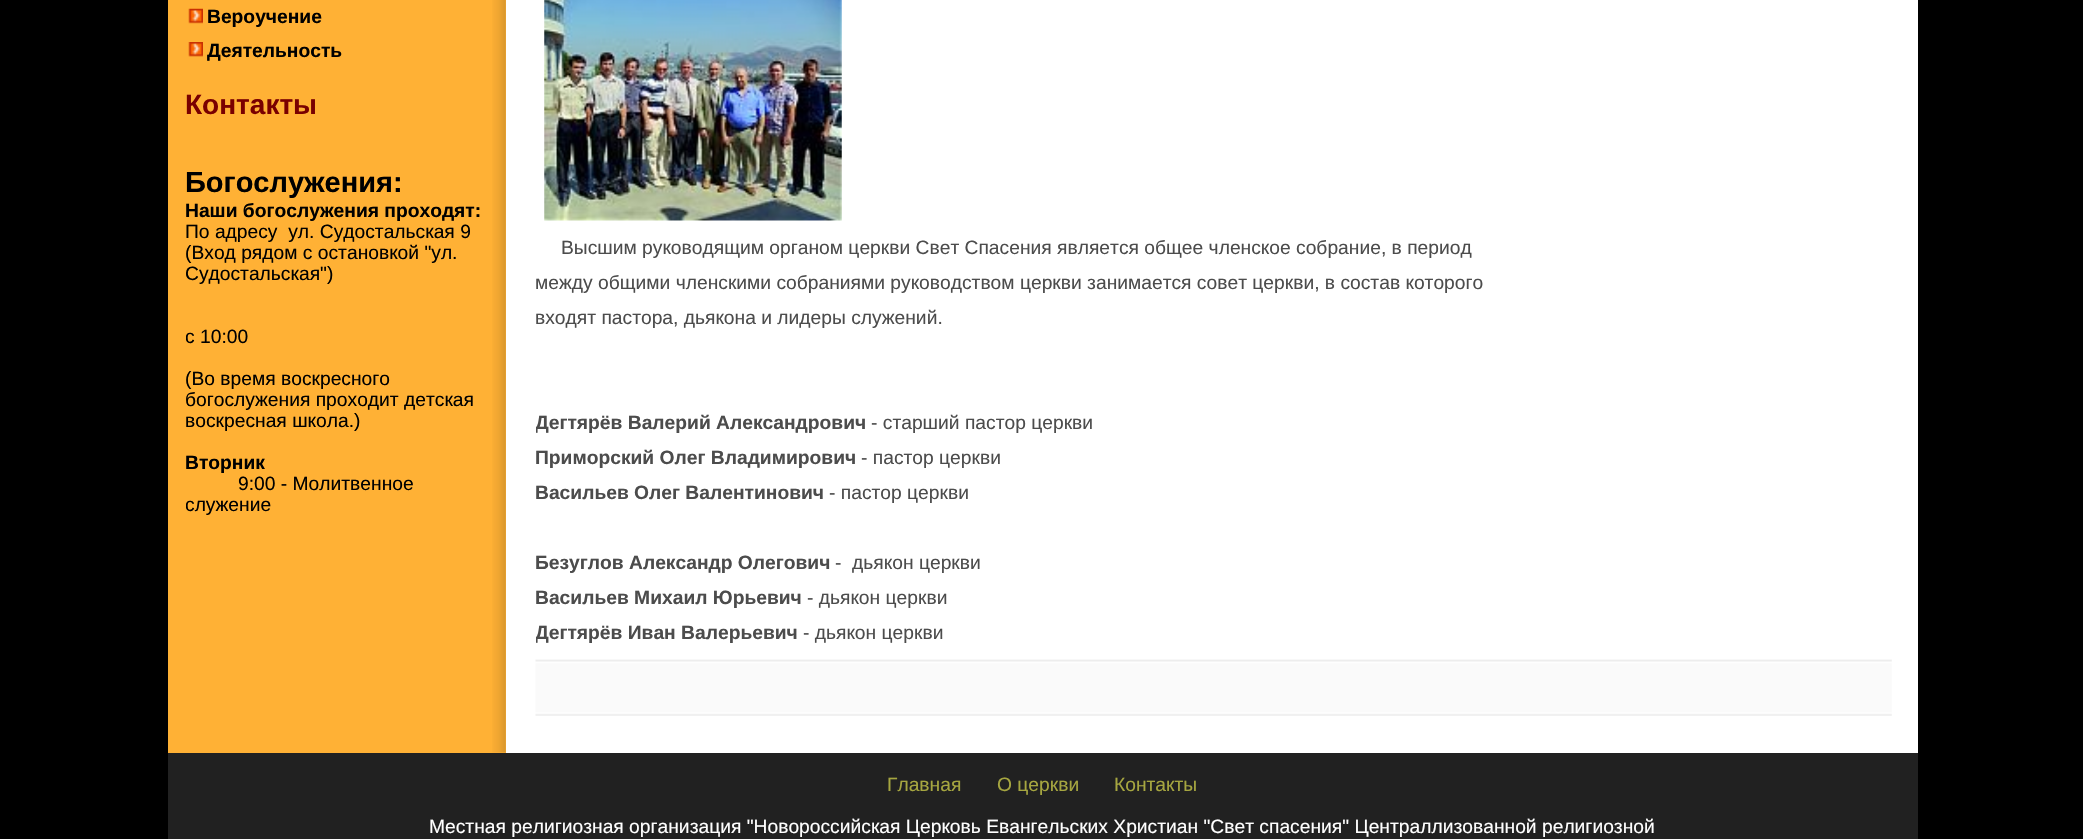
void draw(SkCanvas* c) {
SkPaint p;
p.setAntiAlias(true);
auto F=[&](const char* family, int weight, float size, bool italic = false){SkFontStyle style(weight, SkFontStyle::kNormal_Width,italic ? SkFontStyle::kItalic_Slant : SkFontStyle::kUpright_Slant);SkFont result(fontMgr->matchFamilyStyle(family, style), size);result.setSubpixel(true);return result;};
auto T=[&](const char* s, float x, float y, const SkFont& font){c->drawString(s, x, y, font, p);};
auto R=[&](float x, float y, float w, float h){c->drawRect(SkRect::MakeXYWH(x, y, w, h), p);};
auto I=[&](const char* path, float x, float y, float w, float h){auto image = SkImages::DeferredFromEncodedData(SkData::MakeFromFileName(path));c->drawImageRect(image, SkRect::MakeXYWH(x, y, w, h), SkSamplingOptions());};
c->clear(0xff000000);
p.setColor(0xffffb135);
R(168,0,338,753);
I("1.png",492,0,14,753);
I("2.png",188,8,15,16);
auto f1 = F("Liberation Sans",700,19.25);
p.setColor(0xff000000);
T("Вероучение",207,23,f1);
I("3.png",188,42,15,15);
T("Деятельность",207,57,f1);
auto f2 = F("Liberation Sans",700,28);
p.setColor(0xff790000);
T("Контакты",185,114,f2);
auto f3 = F("Liberation Sans",700,29);
p.setColor(0xff000000);
T("Богослужения:",185,192,f3);
c->save();
c->clipRect(SkRect::MakeXYWH(186,200,302,315));
T("Наши богослужения проходят:",185,217,f1);
c->restore();
auto f4 = F("Liberation Sans",400,19.25);
T("По адресу  ул. Судостальская 9",185,238,f4);
T("(Вход рядом с остановкой \"ул.",185,259,f4);
c->save();
c->clipRect(SkRect::MakeXYWH(186,200,302,315));
T("Судостальская\")",185,280,f4);
T("с 10:00",185,343,f4);
c->restore();
T("(Во время воскресного",185,385,f4);
c->save();
c->clipRect(SkRect::MakeXYWH(186,200,302,315));
T("богослужения проходит детская",185,406,f4);
c->restore();
T("воскресная школа.)",185,427,f4);
c->save();
c->clipRect(SkRect::MakeXYWH(186,200,302,315));
T("Вторник",185,469,f1);
c->restore();
T("9:00 - Молитвенное",238,490,f4);
c->save();
c->clipRect(SkRect::MakeXYWH(186,200,302,315));
T("служение",185,511,f4);
c->restore();
p.setColor(0xffffffff);
R(506,0,1412,753);
I("4.png",544,0,298,221);
p.setColor(0xff4c4c4c);
T("Высшим руководящим органом церкви Свет Спасения является общее членское собрание, в период",561,254,f4);
T("между общими членскими собраниями руководством церкви занимается совет церкви, в состав которого",535,289,f4);
T("входят пастора, дьякона и лидеры служений.",535,324,f4);
c->save();
c->clipRect(SkRect::MakeXYWH(536,0,997,658));
T("Дегтярёв Валерий Александрович",535,429,f1);
c->restore();
T("- старший пастор церкви",871,429,f4);
c->save();
c->clipRect(SkRect::MakeXYWH(536,0,997,658));
T("Приморский Олег Владимирович",535,464,f1);
c->restore();
T("- пастор церкви",861,464,f4);
c->save();
c->clipRect(SkRect::MakeXYWH(536,0,997,658));
T("Васильев Олег Валентинович",535,499,f1);
c->restore();
T("- пастор церкви",829,499,f4);
c->save();
c->clipRect(SkRect::MakeXYWH(536,0,997,658));
T("Безуглов Александр Олегович",535,569,f1);
c->restore();
T("-  дьякон церкви",835,569,f4);
c->save();
c->clipRect(SkRect::MakeXYWH(536,0,997,658));
T("Васильев Михаил Юрьевич",535,604,f1);
c->restore();
T("- дьякон церкви",807,604,f4);
c->save();
c->clipRect(SkRect::MakeXYWH(536,0,997,658));
T("Дегтярёв Иван Валерьевич",535,639,f1);
c->restore();
T("- дьякон церкви",803,639,f4);
I("5.png",535,659,1357,57);
p.setColor(0xff212121);
R(168,753,1750,86);
p.setColor(0xffa6a640);
T("Главная",887,791,f4);
T("О церкви",997,791,f4);
T("Контакты",1114,791,f4);
p.setColor(0xffffffff);
T("Местная религиозная организация \"Новороссийская Церковь Евангельских Христиан \"Свет спасения\" Централлизованной религиозной",429,833,f4);
}
